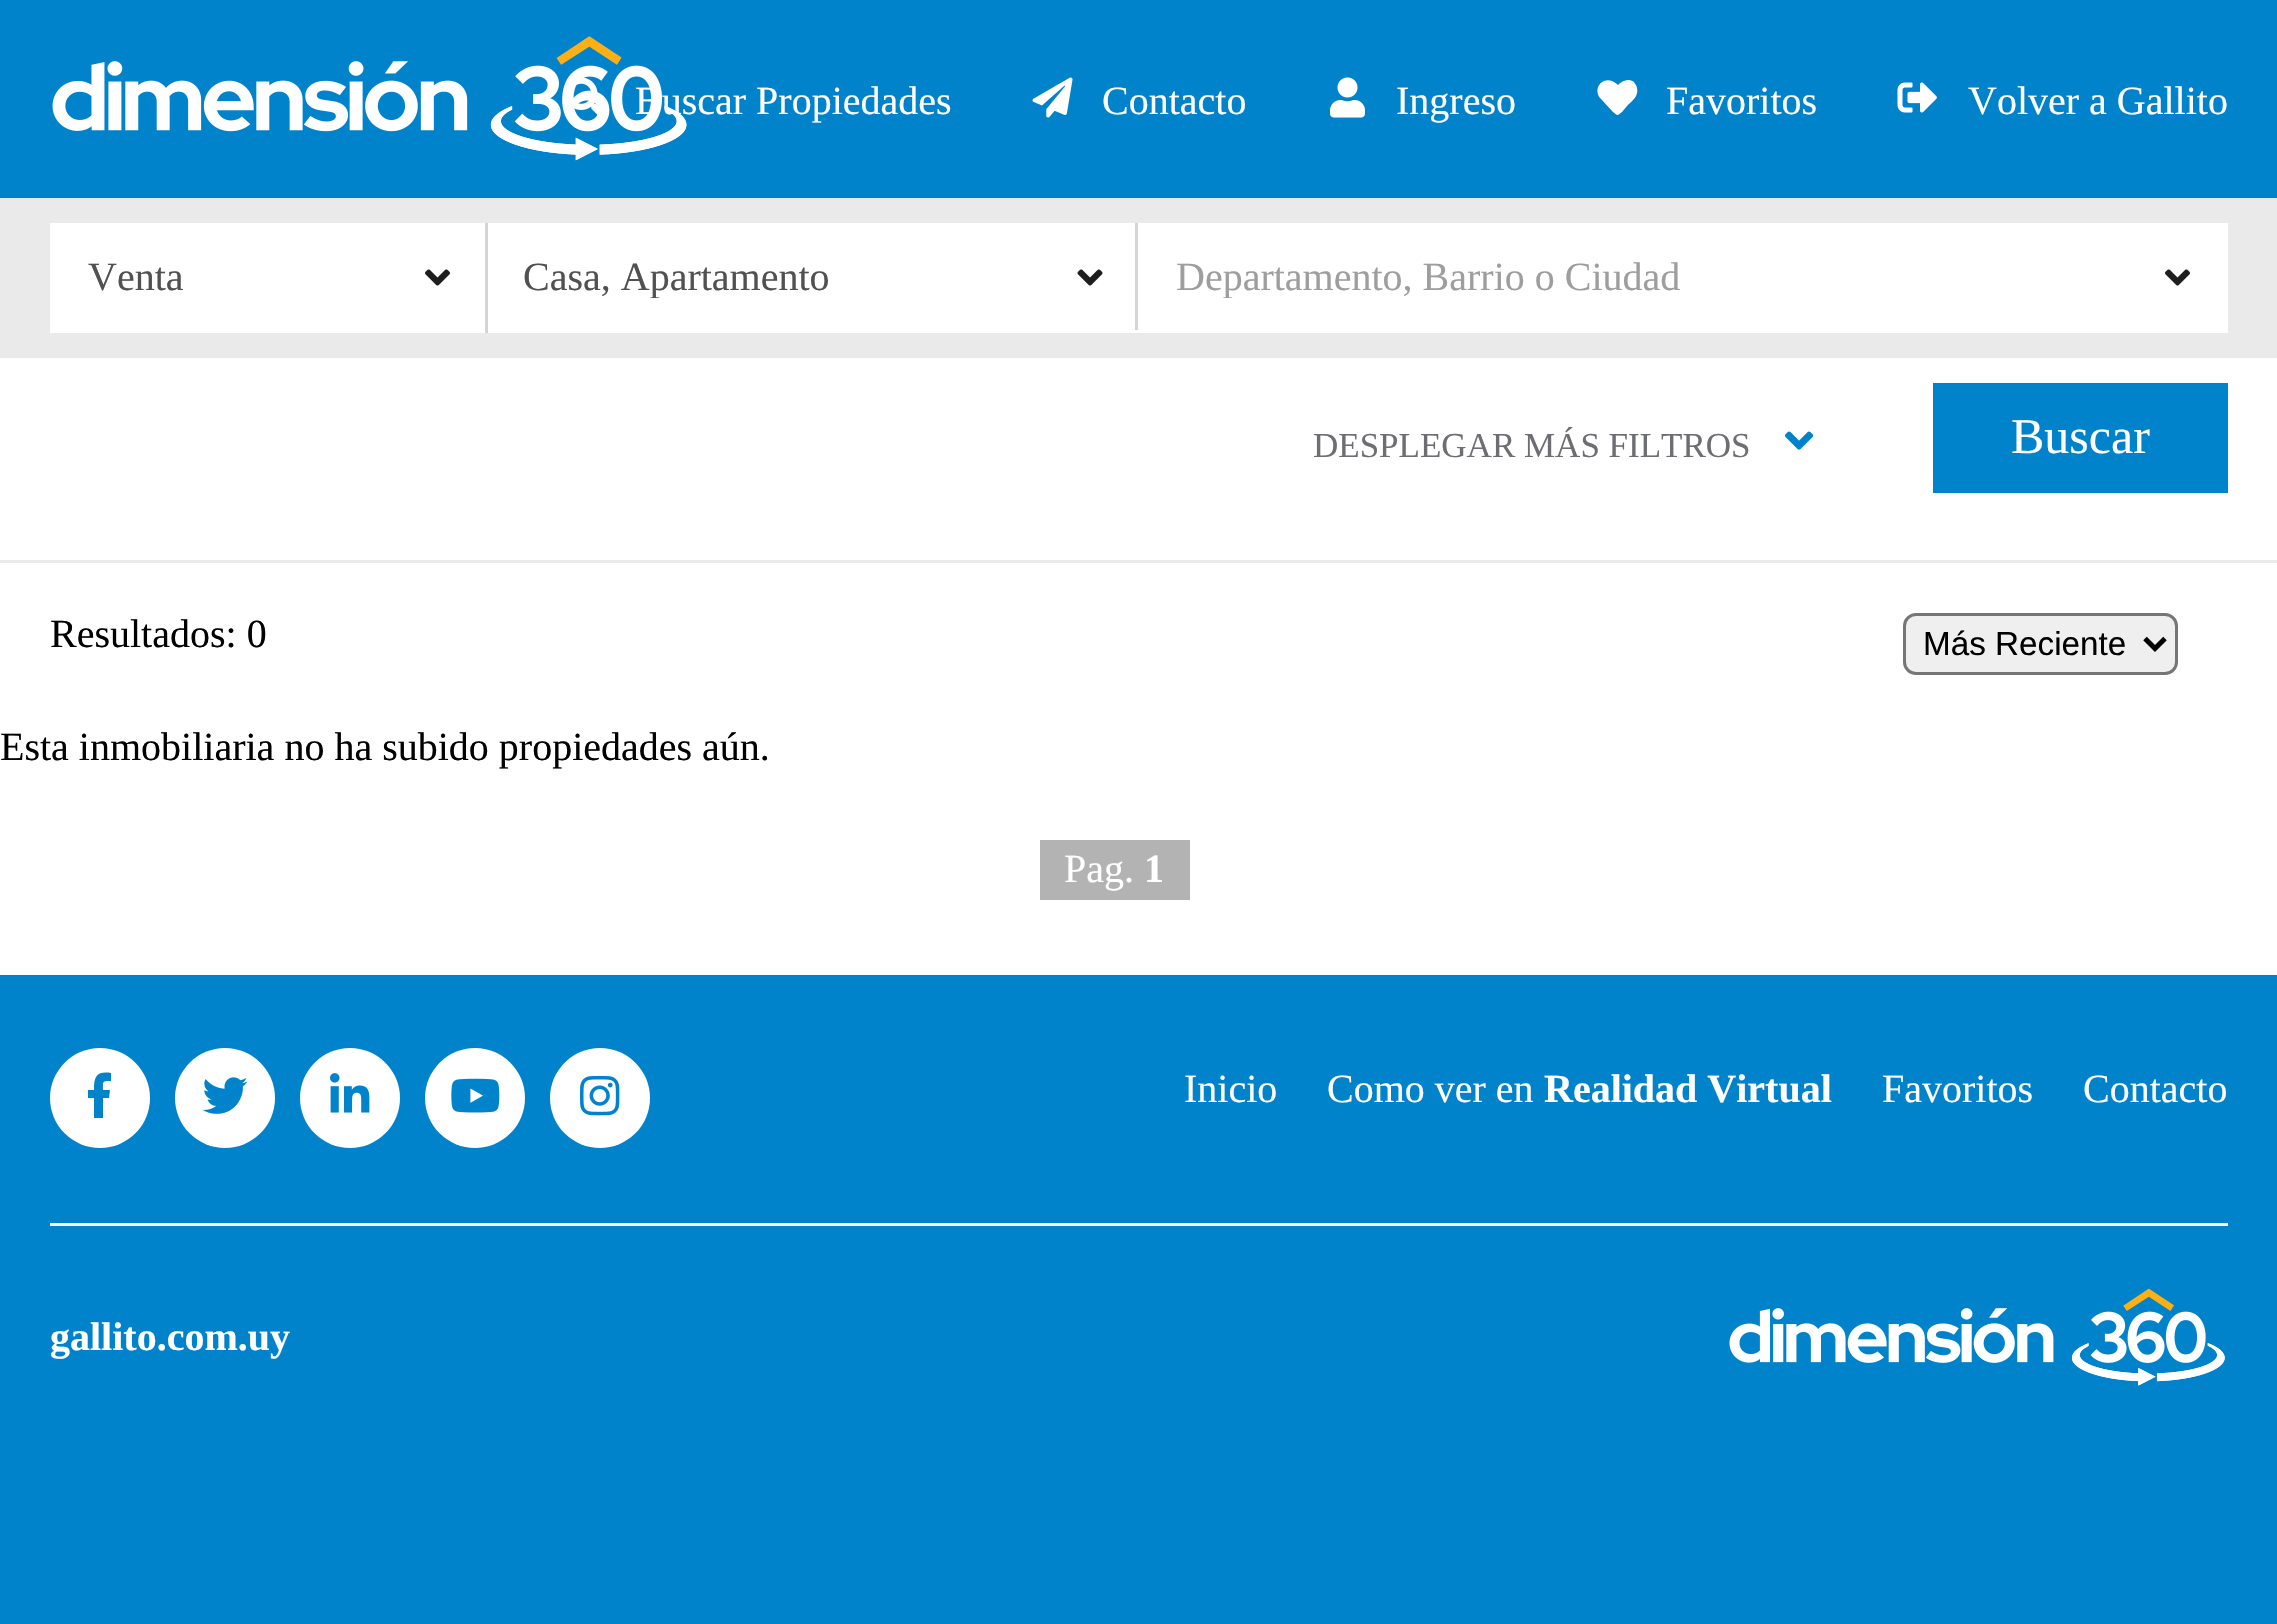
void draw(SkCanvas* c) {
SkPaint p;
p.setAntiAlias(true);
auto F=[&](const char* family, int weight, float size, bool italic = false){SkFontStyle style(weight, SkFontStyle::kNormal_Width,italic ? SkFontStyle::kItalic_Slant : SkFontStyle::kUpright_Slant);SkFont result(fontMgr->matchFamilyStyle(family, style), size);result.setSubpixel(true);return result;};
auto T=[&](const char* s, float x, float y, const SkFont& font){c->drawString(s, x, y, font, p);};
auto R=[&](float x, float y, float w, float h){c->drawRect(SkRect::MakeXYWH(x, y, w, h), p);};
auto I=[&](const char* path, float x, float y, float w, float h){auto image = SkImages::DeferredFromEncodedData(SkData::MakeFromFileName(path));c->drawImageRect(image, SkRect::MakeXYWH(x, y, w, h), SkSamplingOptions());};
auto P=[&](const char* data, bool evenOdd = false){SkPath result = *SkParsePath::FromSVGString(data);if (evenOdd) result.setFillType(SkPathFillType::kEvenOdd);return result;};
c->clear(0xff0083cb);
I("1.png",52,36,635,125);
I("2.png",574,77,25,38);
auto f1 = F("Liberation Serif",400,40);
p.setColor(0xffffffff);
T("Buscar Propiedades",635,114,f1);
I("3.png",1032,77,41,41);
T("Contacto",1102,114,f1);
I("4.png",1330,77,35,41);
T("Ingreso",1396,114,f1);
c->drawPath(P("M1634 82c-6-4-12-1-16 3c-14-13-27 4-17 14l12 13c5 4 4 4 9 0l5-6c5-5 12-10 10-18c0-2-2-4-3-6z"),p);
T("Favoritos",1666,114,f1);
I("5.png",1897,82,40,31);
T("Volver a Gallito",1968,114,f1);
R(0,358,2277,617);
p.setColor(0xffeaeaea);
R(0,198,2277,160);
p.setColor(0xffffffff);
R(50,223,435,110);
p.setColor(0xff515151);
T("Venta",88,290,f1);
I("6.png",425,269,25,17);
p.setColor(0xffffffff);
R(488,223,647,107);
p.setColor(0xffd5d5d5);
R(1135,223,3,110);
p.setColor(0xffffffff);
R(485,330,653,3);
p.setColor(0xffd5d5d5);
R(485,223,3,110);
c->save();
c->clipRect(SkRect::MakeXYWH(503,258,585,40));
p.setColor(0xff515151);
T("Casa, Apartamento",523,290,f1);
c->restore();
I("7.png",1077,269,26,17);
p.setColor(0xffffffff);
R(1138,223,1090,110);
c->save();
c->clipRect(SkRect::MakeXYWH(1155,258,1023,40));
p.setColor(0xff9e9e9e);
T("Departamento, Barrio o Ciudad",1176,290,f1);
c->restore();
I("6.png",2165,269,25,17);
auto f2 = F("Liberation Serif",400,35);
p.setColor(0xff6d6e71);
T("DESPLEGAR MÁS FILTROS",1313,457,f2);
I("8.png",1785,431,29,19);
p.setColor(0xff0083cb);
R(1933,383,295,110);
auto f3 = F("Liberation Serif",400,50);
p.setColor(0xffffffff);
T("Buscar",2011,453,f3);
p.setColor(0xffeaeaea);
R(0,560,2277,3);
p.setColor(0xff000000);
T("Resultados: 0",50,647,f1);
p.setColor(0xffefefef);
c->drawRoundRect(SkRect::MakeXYWH(1904.5,614.5,272,59),11.5,11.5,p);
p.setStroke(true);
p.setStrokeWidth(3);
p.setColor(0xff767676);
c->drawRoundRect(SkRect::MakeXYWH(1904.5,614.5,272,59),11.5,11.5,p);
p.setStrokeWidth(5);
p.setColor(0xff000000);
c->drawPath(P("M2145 638.5l10 10l10-10"),p);
auto f4 = F("Liberation Sans",400,33.25);
p.setStroke(false);
T("Más Reciente",1923,655,f4);
T("Esta inmobiliaria no ha subido propiedades aún.",0,760,f1);
p.setColor(0xffb3b3b3);
R(1040,840,150,60);
p.setColor(0xffffffff);
T("Pag.",1064,882,f1);
auto f5 = F("Liberation Serif",700,40);
T("1",1144,882,f5);
R(50,1223,2178,3);
c->drawCircle(100,1098,50,p);
p.setColor(0xff0083cb);
c->drawPath(P("M94 1118v-20h-6v-8h6c0-13 2-19 17-17v8c-9 0-8 0-8 9h7l-1 8h-6v20z"),p);
p.setColor(0xffffffff);
c->drawCircle(225,1098,50,p);
I("9.png",202,1077,46,37);
c->drawCircle(350,1098,50,p);
I("10.png",330,1073,40,40);
c->drawCircle(475,1098,50,p);
I("11.png",451,1078,49,35);
c->drawCircle(600,1098,50,p);
I("12.png",580,1075,40,41);
T("Inicio",1184,1102,f1);
T("Como ver en",1327,1102,f1);
T("Realidad Virtual",1544,1102,f5);
T("Favoritos",1882,1102,f1);
T("Contacto",2083,1102,f1);
T("gallito.com.uy",50,1350,f5);
I("13.png",1729,1288,496,98);
}
